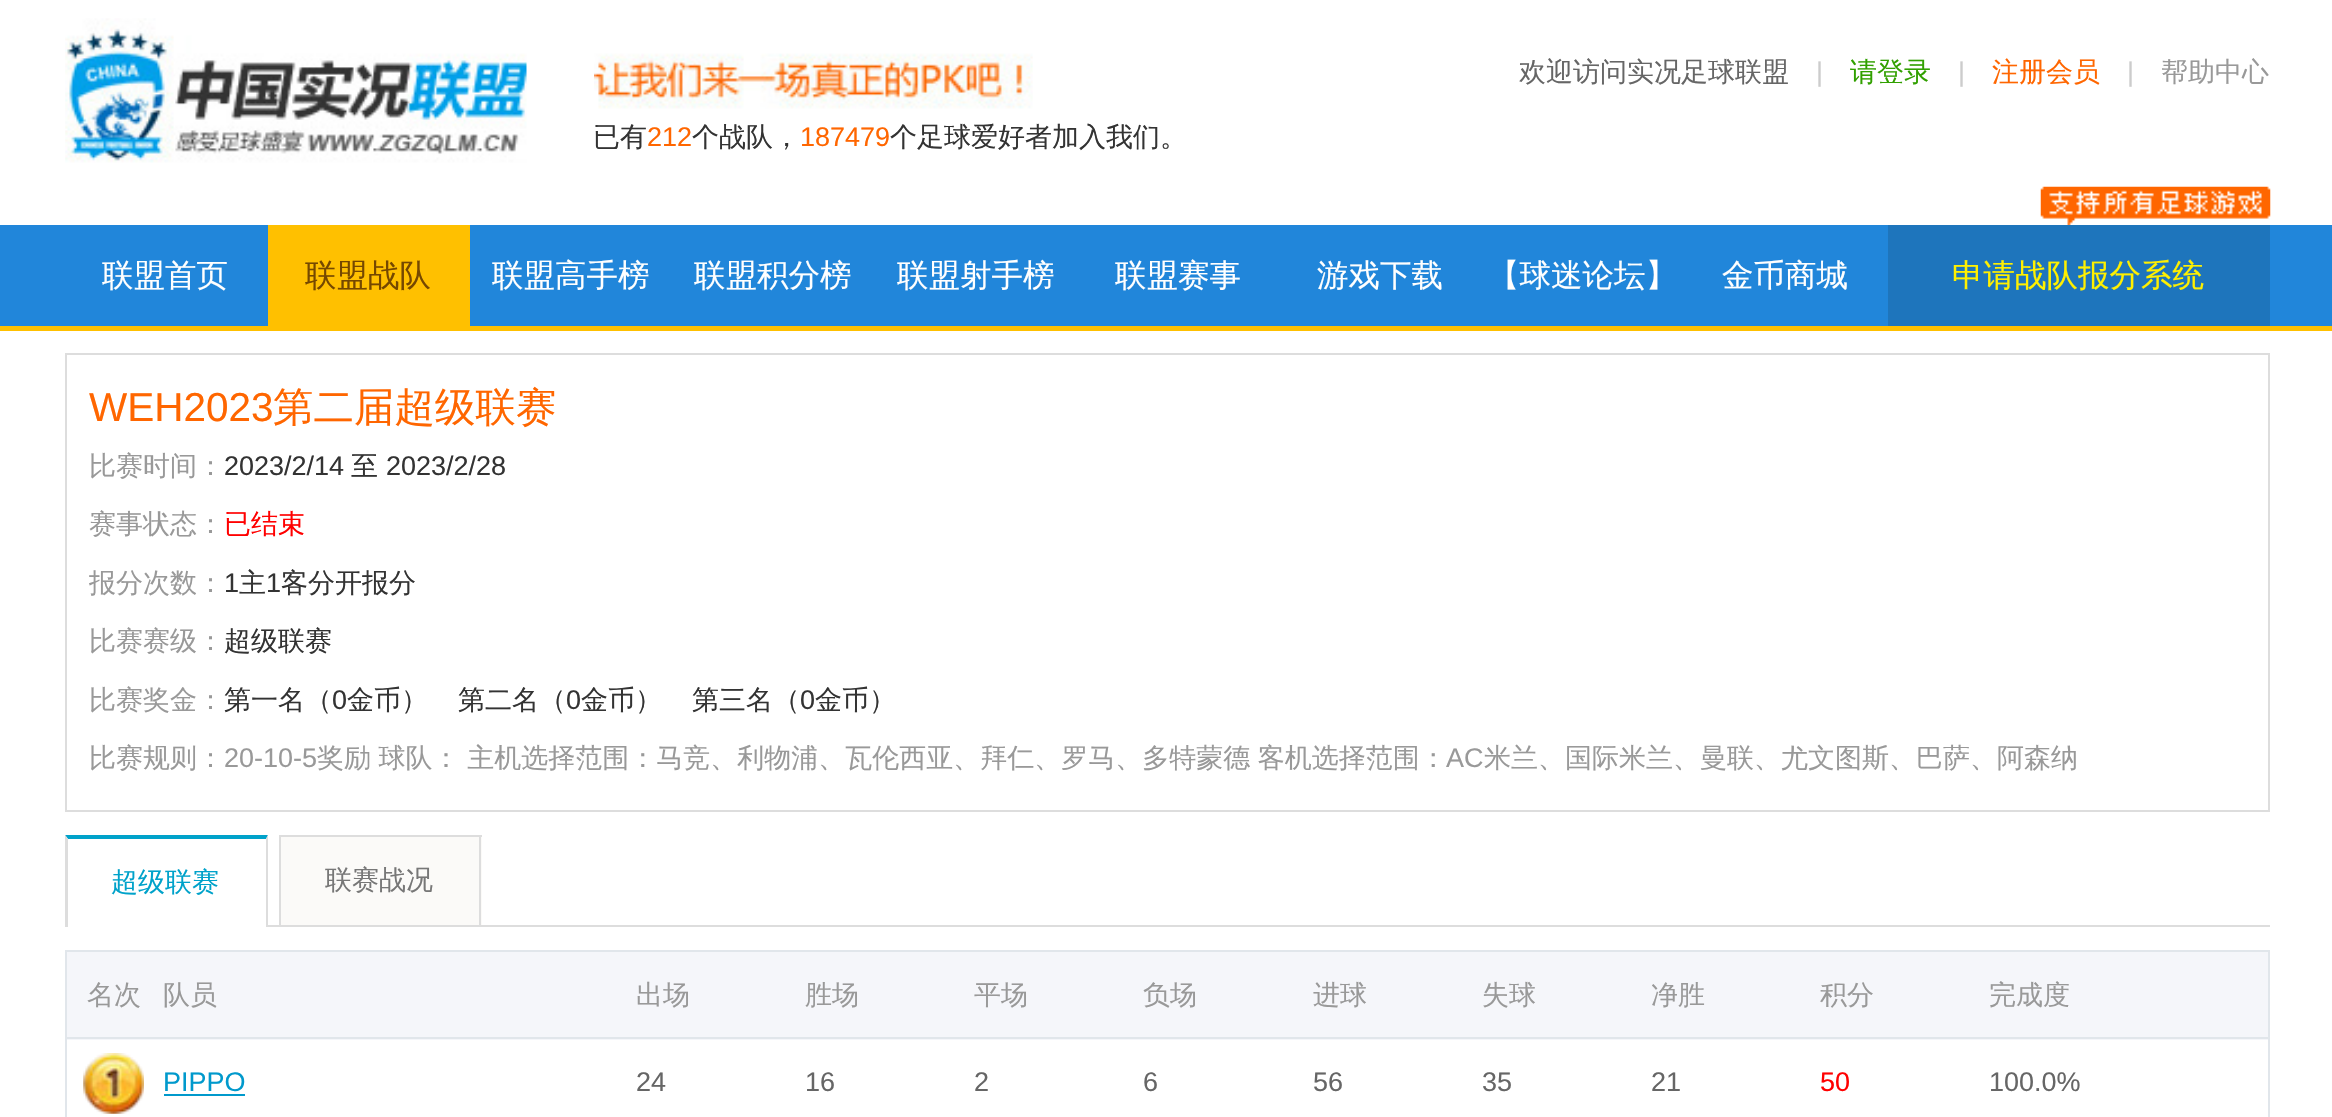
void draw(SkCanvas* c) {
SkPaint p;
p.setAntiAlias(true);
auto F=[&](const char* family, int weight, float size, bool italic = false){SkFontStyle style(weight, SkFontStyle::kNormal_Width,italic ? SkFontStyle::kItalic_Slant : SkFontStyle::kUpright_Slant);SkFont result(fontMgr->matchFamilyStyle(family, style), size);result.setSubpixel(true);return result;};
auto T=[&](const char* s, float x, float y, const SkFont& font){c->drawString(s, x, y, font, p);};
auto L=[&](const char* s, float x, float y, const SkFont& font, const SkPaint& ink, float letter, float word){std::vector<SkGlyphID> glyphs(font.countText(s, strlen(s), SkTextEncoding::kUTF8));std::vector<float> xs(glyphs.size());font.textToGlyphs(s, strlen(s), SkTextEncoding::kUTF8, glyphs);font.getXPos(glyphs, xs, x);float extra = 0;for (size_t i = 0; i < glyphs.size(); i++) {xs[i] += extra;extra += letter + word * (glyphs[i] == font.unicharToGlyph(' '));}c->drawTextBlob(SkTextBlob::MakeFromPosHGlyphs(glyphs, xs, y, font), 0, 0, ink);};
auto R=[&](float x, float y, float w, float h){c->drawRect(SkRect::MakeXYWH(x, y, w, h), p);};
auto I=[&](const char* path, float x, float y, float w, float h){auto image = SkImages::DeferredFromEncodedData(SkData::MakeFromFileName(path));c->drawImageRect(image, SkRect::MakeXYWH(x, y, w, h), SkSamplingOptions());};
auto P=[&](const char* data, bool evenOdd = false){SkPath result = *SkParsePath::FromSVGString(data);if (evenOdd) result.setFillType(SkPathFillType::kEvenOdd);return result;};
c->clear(0xffffffff);
I("1.png",65,18,462,145);
auto f1 = F("WenQuanYi Zen Hei",500,27);
p.setColor(0xff666666);
T("欢迎访问实况足球联盟",1519,81,f1);
auto f2 = F("Liberation Sans",400,27);
p.setColor(0xffcccccc);
T("|",1816,81,f2);
p.setColor(0xff31a000);
T("请登录",1850,81,f1);
p.setColor(0xffcccccc);
T("|",1958,81,f2);
p.setColor(0xffff6600);
T("注册会员",1992,81,f1);
p.setColor(0xffcccccc);
T("|",2127,81,f2);
p.setColor(0xff999999);
T("帮助中心",2161,81,f1);
I("2.png",594,53,439,56);
p.setColor(0xff333333);
T("已有",593,146,f1);
p.setColor(0xffff6600);
T("212",647,146,f2);
p.setColor(0xff333333);
T("个战队，",692,146,f1);
p.setColor(0xffff6600);
T("187479",800,146,f2);
p.setColor(0xff333333);
T("个足球爱好者加入我们。",890,146,f1);
p.setColor(0xff2186da);
R(0,225,2332,101);
p.setColor(0xffffc000);
R(0,326,2332,5);
auto f3 = F("WenQuanYi Zen Hei",500,31.5);
p.setColor(0xffffffff);
T("联盟首页",102,286,f3);
p.setColor(0xffffc000);
R(268,225,202,101);
p.setColor(0xff754800);
T("联盟战队",305,286,f3);
p.setColor(0xffffffff);
T("联盟高手榜",492,286,f3);
T("联盟积分榜",694,286,f3);
T("联盟射手榜",897,286,f3);
T("联盟赛事",1115,286,f3);
T("游戏下载",1317,286,f3);
T("【球迷论坛】",1488,286,f3);
T("金币商城",1722,286,f3);
I("3.png",2040,186,231,39);
p.setColor(0xff1e75bc);
R(1888,225,382,101);
p.setColor(0xfffff000);
T("申请战队报分系统",1952,286,f3);
p.setStroke(true);
p.setStrokeWidth(2);
p.setColor(0xffdddddd);
c->drawRect(SkRect::MakeXYWH(66,354,2203,457),p);
auto f4 = F("Liberation Sans",400,40.5);
p.setStroke(false);
p.setColor(0xffff6600);
T("WEH2023",89,421,f4);
auto f5 = F("WenQuanYi Zen Hei",500,40.5);
T("第二届超级联赛",273,421,f5);
p.setColor(0xff999999);
T("比赛时间：",89,475,f1);
p.setColor(0xff333333);
T("2023/2/14",224,475,f2);
T("至",351,475,f1);
T("2023/2/28",386,475,f2);
p.setColor(0xff999999);
T("赛事状态：",89,533,f1);
p.setColor(0xffff0000);
T("已结束",224,533,f1);
p.setColor(0xff999999);
T("报分次数：",89,592,f1);
p.setColor(0xff333333);
T("1",224,592,f2);
T("主",239,592,f1);
T("1",266,592,f2);
T("客分开报分",281,592,f1);
p.setColor(0xff999999);
T("比赛赛级：",89,650,f1);
p.setColor(0xff333333);
T("超级联赛",224,650,f1);
p.setColor(0xff999999);
T("比赛奖金：",89,709,f1);
p.setColor(0xff333333);
T("第一名（",224,709,f1);
T("0",332,709,f2);
T("金币）",347,709,f1);
T("第二名（",458,709,f1);
T("0",566,709,f2);
T("金币）",581,709,f1);
T("第三名（",692,709,f1);
T("0",800,709,f2);
T("金币）",815,709,f1);
p.setColor(0xff999999);
T("比赛规则：",89,767,f1);
T("20-10-5",224,767,f2);
L("奖励 球队： 主机选择范围：马竞、利物浦、瓦伦西亚、拜仁、罗马、多特蒙德 客机选择范围：",317,767,f1,p,0,-.5);
T("AC",1446,767,f2);
T("米兰、国际米兰、曼联、尤文图斯、巴萨、阿森纳",1484,767,f1);
p.setColor(0xffdddddd);
R(268,925,2002,2);
p.setColor(0xff00a2ca);
c->drawPath(P("M65 835h203l-2 4h-198z"),p);
p.setColor(0xffdddddd);
c->drawPath(P("M268 835v92h-2v-88z"),p);
c->drawPath(P("M65 927v-92l3 4v88z"),p);
p.setColor(0xff00a2ca);
T("超级联赛",111,891,f1);
p.setColor(0xfffbfaf8);
R(281,837,201,88);
p.setColor(0xffdddddd);
R(279,835,203,2);
R(479,835,2,90);
R(279,835,2,90);
p.setColor(0xff777777);
T("联赛战况",325,889,f1);
p.setColor(0xffe1e6eb);
R(65,950,2205,2);
R(2268,950,2,167);
R(65,950,2,167);
p.setColor(0xfff5f6fa);
R(67,952,2201,88);
p.setColor(0xff999999);
T("名次",87,1004,f1);
T("队员",163,1004,f1);
T("出场",636,1004,f1);
T("胜场",805,1004,f1);
T("平场",974,1004,f1);
T("负场",1143,1004,f1);
T("进球",1313,1004,f1);
T("失球",1482,1004,f1);
T("净胜",1651,1004,f1);
T("积分",1820,1004,f1);
T("完成度",1989,1004,f1);
I("4.png",83,1053,61,61);
p.setColor(0xff0099cc);
T("PIPPO",163,1091,f2);
R(164,1094,81,2);
p.setColor(0xff666666);
T("24",636,1091,f2);
T("16",805,1091,f2);
T("2",974,1091,f2);
T("6",1143,1091,f2);
T("56",1313,1091,f2);
T("35",1482,1091,f2);
T("21",1651,1091,f2);
p.setColor(0xffff0000);
T("50",1820,1091,f2);
p.setColor(0xffe1e6eb);
R(65,1037,2205,2);
p.setColor(0xff666666);
T("100.0%",1989,1091,f2);
}
